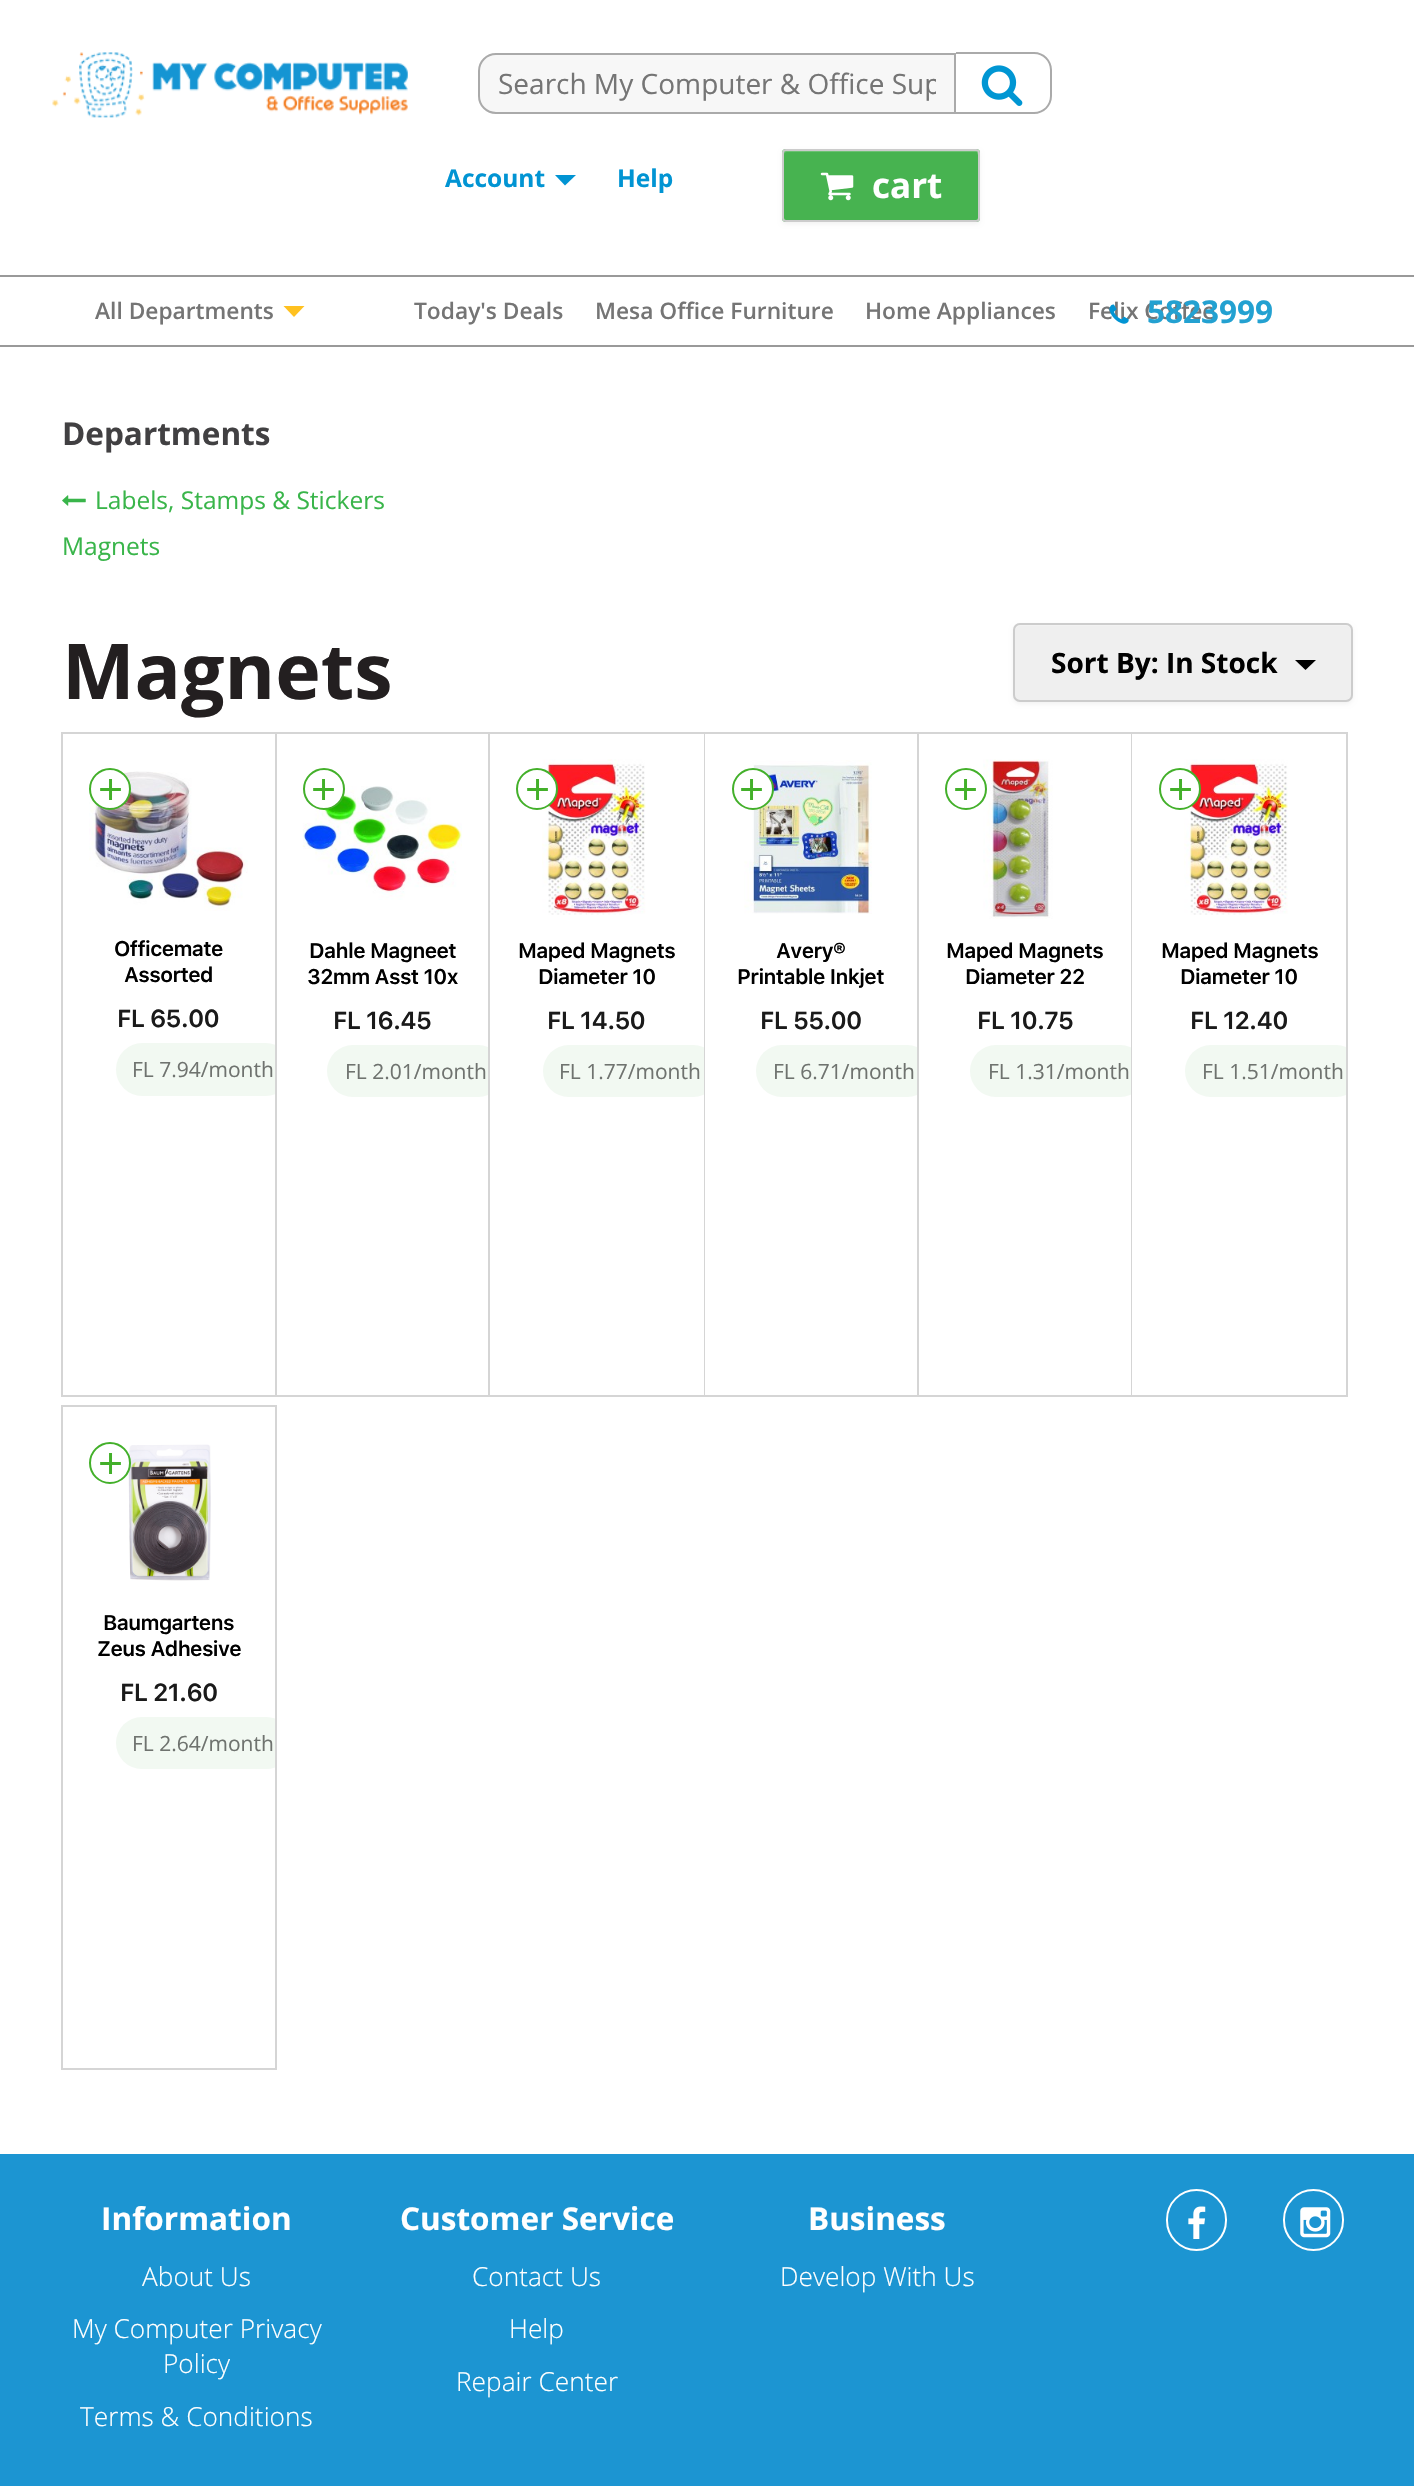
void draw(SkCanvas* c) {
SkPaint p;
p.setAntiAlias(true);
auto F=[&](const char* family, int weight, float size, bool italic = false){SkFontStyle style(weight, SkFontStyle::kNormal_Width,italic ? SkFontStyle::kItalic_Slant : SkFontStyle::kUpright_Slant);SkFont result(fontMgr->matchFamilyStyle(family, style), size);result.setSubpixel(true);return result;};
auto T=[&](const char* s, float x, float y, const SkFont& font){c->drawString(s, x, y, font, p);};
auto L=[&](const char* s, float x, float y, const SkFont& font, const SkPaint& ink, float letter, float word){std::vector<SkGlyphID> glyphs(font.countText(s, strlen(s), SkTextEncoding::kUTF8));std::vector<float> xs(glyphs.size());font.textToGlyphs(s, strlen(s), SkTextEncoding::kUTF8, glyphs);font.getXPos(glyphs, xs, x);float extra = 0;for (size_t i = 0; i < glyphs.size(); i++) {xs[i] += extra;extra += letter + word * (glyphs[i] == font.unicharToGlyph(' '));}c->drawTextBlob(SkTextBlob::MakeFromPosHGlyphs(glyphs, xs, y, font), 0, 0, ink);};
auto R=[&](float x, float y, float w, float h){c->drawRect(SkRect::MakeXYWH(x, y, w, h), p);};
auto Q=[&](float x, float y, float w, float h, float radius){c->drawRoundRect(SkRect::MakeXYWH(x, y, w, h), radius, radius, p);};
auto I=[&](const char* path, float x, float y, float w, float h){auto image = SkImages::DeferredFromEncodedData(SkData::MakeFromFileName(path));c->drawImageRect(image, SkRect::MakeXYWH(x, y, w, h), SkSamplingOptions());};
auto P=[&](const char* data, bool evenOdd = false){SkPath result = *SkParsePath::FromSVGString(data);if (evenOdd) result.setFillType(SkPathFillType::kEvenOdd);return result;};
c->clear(0xffffffff);
I("1.png",52,52,356,66);
p.setColor(0xfff7f7f7);
c->drawPath(P("M496 54h459v59h-459c-9.5 0-17-7.5-17-17v-25c0-9.5 7.5-17 17-17z"),p);
p.setStroke(true);
p.setStrokeWidth(2);
p.setColor(0xffaaaaaa);
c->drawPath(P("M496 54h459v59h-459c-9.5 0-17-7.5-17-17v-25c0-9.5 7.5-17 17-17z"),p);
c->save();
c->clipRect(SkRect::MakeXYWH(497,65,439,38));
auto f1 = F("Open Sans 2",400,28);
p.setStroke(false);
p.setColor(0xff757575);
T("Search My Computer & Office Sup",498,94,f1);
c->restore();
p.setColor(0xffaaaaaa);
c->drawPath(P("M956 52h78c10 0 18 8 18 18v26c0 10-8 18-18 18h-78zm0 2h78c9 0 16 7 16 16v26c0 9-7 16-16 16h-78z",true),p);
I("2.png",981,65,42,41);
auto f2 = F("Open Sans",700,24.5);
p.setColor(0xff0194d3);
T("Account",445,187,f2);
c->drawPath(P("M555 175h21l-11 10.5z"),p);
T("Help",617,187,f2);
p.setColor(0x0d000000);
p.setMaskFilter(SkMaskFilter::MakeBlur(kNormal_SkBlurStyle, 2));
c->drawRoundRect(SkRect::MakeXYWH(782,151,198,73),4,4,p);
p.setMaskFilter(nullptr);
p.setColor(0xff47b350);
Q(782,149,198,73,4);
p.setColor(0xff6cc273);
c->drawPath(P("M787 152h190v1l1 2c0-2 0-4-2-4h-190c-2 0-2 2-2 4c0-2 1-3 3-3z"),p);
p.setStroke(true);
p.setColor(0xffcccccc);
c->drawRoundRect(SkRect::MakeXYWH(783,150,196,71),3,3,p);
I("3.png",820,172,34,29);
auto f3 = F("Open Sans",700,35);
p.setStroke(false);
p.setColor(0xffffffff);
T("cart",872,198,f3);
p.setColor(0xff999999);
R(0,275,1414,2);
R(0,345,1414,2);
auto f4 = F("Open Sans",600,22.75);
p.setColor(0xff757575);
T("Felix Coffee",1088,319,f4);
I("4.png",1109,304,20,20);
auto f5 = F("Open Sans",700,31.5);
p.setColor(0xff23a1d1);
T("5823999",1147,323,f5);
p.setColor(0xff757575);
T("All Departments",95,319,f4);
p.setColor(0xffffc120);
c->drawPath(P("M283.5 306h21l-10.5 11z"),p);
p.setColor(0xff757575);
T("Today's Deals",414,319,f4);
T("Mesa Office Furniture",595,319,f4);
T("Home Appliances",865,319,f4);
p.setColor(0xff414042);
T("Departments",62,445,f5);
I("5.png",62,495,24,11);
auto f6 = F("Open Sans",400,24.5);
p.setColor(0xff39b54a);
T("Labels, Stamps & Stickers",95,509,f6);
T("Magnets",62,555,f6);
auto f7 = F("Open Sans 2",700,77);
p.setColor(0xff231f20);
T("Magnets",62,699,f7);
p.setColor(0x0d000000);
p.setMaskFilter(SkMaskFilter::MakeBlur(kNormal_SkBlurStyle, 2));
c->drawRoundRect(SkRect::MakeXYWH(1013,625,340,79),7,7,p);
p.setMaskFilter(nullptr);
p.setColor(0xffefefef);
Q(1013,623,340,79,7);
p.setColor(0xfff2f2f2);
c->drawPath(P("M1020 626h326c3 0 5 3 5 6v-2c0-3-2-5-5-5h-326c-3 0-5 2-5 5v2c0-3 2-6 5-6z"),p);
p.setStroke(true);
p.setColor(0xffcccccc);
c->drawRoundRect(SkRect::MakeXYWH(1014,624,338,77),6,6,p);
auto f8 = F("Open Sans",700,28);
p.setStroke(false);
p.setColor(0xff000000);
T("Sort By: In Stock",1051,673,f8);
c->drawPath(P("M1295 660h21l-10.5 10z"),p);
p.setStroke(true);
p.setColor(0xffd5d5d5);
c->drawRect(SkRect::MakeXYWH(62,733,214,663),p);
I("6.png",89,771,159,140);
p.setStroke(false);
p.setColor(0xffffffff);
c->drawCircle(110,789,20,p);
p.setStroke(true);
p.setColor(0xff43b02a);
c->drawCircle(110,789,20,p);
auto f9 = F("Open Sans",400,44);
p.setStroke(false);
T("+",98,805,f9);
auto f10 = F("SF Pro Text",600,21);
p.setColor(0xff000000);
L("Officemate",114,956,f10,p,-.6,0);
L("Assorted",124,982,f10,p,-.6,0);
auto f11 = F("SF Pro Text",600,24.5);
p.setColor(0xff1a1a1a);
L("FL 65.00",117,1027,f11,p,-.75,0);
c->save();
c->clipRect(SkRect::MakeXYWH(63,733,212,662));
p.setColor(0xfff2f9f2);
Q(116,1043,176,53,26.5);
c->restore();
auto f12 = F("Open Sans",400,21);
p.setColor(0xff6f736f);
T("FL 7.94/month",132,1077,f12);
p.setColor(0xffd5d5d5);
R(277,732,1071,2);
R(488,732,2,665);
R(277,1395,213,2);
I("7.png",302,786,160,114);
p.setColor(0xffffffff);
c->drawCircle(324,789,20,p);
p.setStroke(true);
p.setColor(0xff43b02a);
c->drawCircle(324,789,20,p);
p.setStroke(false);
T("+",311,805,f9);
p.setColor(0xff000000);
L("Dahle Magneet",309,958,f10,p,-.6,0);
L("32mm Asst 10x",307,984,f10,p,-.6,0);
p.setColor(0xff1a1a1a);
L("FL 16.45",333,1029,f11,p,-.75,0);
c->save();
c->clipRect(SkRect::MakeXYWH(277,733,211,662));
p.setColor(0xfff2f9f2);
Q(327,1045,177,52,26);
c->restore();
p.setColor(0xff6f736f);
T("FL 2.01/month",345,1079,f12);
p.setColor(0xffd5d5d5);
R(704,732,1,665);
R(490,1395,215,2);
I("8.png",542,759,104,156);
p.setColor(0xffffffff);
c->drawCircle(537,789,20,p);
p.setStroke(true);
p.setColor(0xff43b02a);
c->drawCircle(537,789,20,p);
p.setStroke(false);
T("+",525,805,f9);
p.setColor(0xff000000);
L("Maped Magnets",518,958,f10,p,-.6,0);
L("Diameter 10",538,984,f10,p,-.6,0);
p.setColor(0xff1a1a1a);
L("FL 14.50",547,1029,f11,p,-.75,0);
c->save();
c->clipRect(SkRect::MakeXYWH(490,733,214,662));
p.setColor(0xfff2f9f2);
Q(543,1045,176,52,26);
c->restore();
p.setColor(0xff6f736f);
T("FL 1.77/month",559,1079,f12);
p.setColor(0xffd5d5d5);
R(917,732,2,665);
R(705,1395,214,2);
I("9.png",744,760,128,154);
p.setColor(0xffffffff);
c->drawCircle(753,789,20,p);
p.setStroke(true);
p.setColor(0xff43b02a);
c->drawCircle(753,789,20,p);
p.setStroke(false);
T("+",739,805,f9);
p.setColor(0xff000000);
L("Avery®",776,958,f10,p,-.6,0);
L("Printable Inkjet",737,984,f10,p,-.6,0);
p.setColor(0xff1a1a1a);
L("FL 55.00",760,1029,f11,p,-.75,0);
c->save();
c->clipRect(SkRect::MakeXYWH(705,733,212,662));
p.setColor(0xfff2f9f2);
Q(756,1045,177,52,26);
c->restore();
p.setColor(0xff6f736f);
T("FL 6.71/month",773,1079,f12);
p.setColor(0xffd5d5d5);
R(1131,732,1,665);
R(919,1395,213,2);
I("10.png",983,759,70,160);
p.setColor(0xffffffff);
c->drawCircle(966,789,20,p);
p.setStroke(true);
p.setColor(0xff43b02a);
c->drawCircle(966,789,20,p);
p.setStroke(false);
T("+",953,805,f9);
p.setColor(0xff000000);
L("Maped Magnets",946,958,f10,p,-.6,0);
L("Diameter 22",965,984,f10,p,-.6,0);
p.setColor(0xff1a1a1a);
L("FL 10.75",977,1029,f11,p,-.75,0);
c->save();
c->clipRect(SkRect::MakeXYWH(919,733,212,662));
p.setColor(0xfff2f9f2);
Q(970,1045,176,52,26);
c->restore();
p.setColor(0xff6f736f);
T("FL 1.31/month",988,1079,f12);
p.setColor(0xffd5d5d5);
R(1346,732,2,665);
R(1132,1395,216,2);
I("11.png",1184,759,104,156);
p.setColor(0xffffffff);
c->drawCircle(1180,789,20,p);
p.setStroke(true);
p.setColor(0xff43b02a);
c->drawCircle(1180,789,20,p);
p.setStroke(false);
T("+",1168,805,f9);
p.setColor(0xff000000);
L("Maped Magnets",1161,958,f10,p,-.6,0);
L("Diameter 10",1180,984,f10,p,-.6,0);
p.setColor(0xff1a1a1a);
L("FL 12.40",1190,1029,f11,p,-.75,0);
c->save();
c->clipRect(SkRect::MakeXYWH(1132,733,214,662));
p.setColor(0xfff2f9f2);
Q(1185,1045,177,52,26);
c->restore();
p.setColor(0xff6f736f);
T("FL 1.51/month",1202,1079,f12);
p.setStroke(true);
p.setColor(0xffd5d5d5);
c->drawRect(SkRect::MakeXYWH(62,1406,214,663),p);
I("12.png",128,1444,83,137);
p.setStroke(false);
p.setColor(0xffffffff);
c->drawCircle(110,1463,20,p);
p.setStroke(true);
p.setColor(0xff43b02a);
c->drawCircle(110,1463,20,p);
p.setStroke(false);
T("+",98,1479,f9);
p.setColor(0xff000000);
L("Baumgartens",103,1630,f10,p,-.6,0);
L("Zeus Adhesive",97,1656,f10,p,-.6,0);
p.setColor(0xff1a1a1a);
L("FL 21.60",120,1701,f11,p,-.75,0);
c->save();
c->clipRect(SkRect::MakeXYWH(63,1407,212,662));
p.setColor(0xfff2f9f2);
Q(116,1717,176,52,26);
c->restore();
p.setColor(0xff6f736f);
T("FL 2.64/month",132,1751,f12);
p.setColor(0xff1c95d2);
R(0,2154,1414,332);
auto f13 = F("Open Sans 2",700,31.5);
p.setColor(0xffffffff);
T("Information",101,2230,f13);
auto f14 = F("Open Sans",300,26.25);
T("About Us",142,2286,f14);
T("My Computer Privacy",72,2338,f14);
T("Policy",163,2373,f14);
T("Terms & Conditions",80,2426,f14);
T("Customer Service",400,2230,f13);
T("Contact Us",472,2286,f14);
T("Help",509,2338,f14);
T("Repair Center",456,2391,f14);
T("Business",808,2230,f13);
T("Develop With Us",780,2286,f14);
p.setStroke(true);
c->drawRoundRect(SkRect::MakeXYWH(1167,2190,59,60),29.5,29.5,p);
I("13.png",1188,2206,18,33);
c->drawRoundRect(SkRect::MakeXYWH(1284,2190,59,60),29.5,29.5,p);
I("14.png",1300,2207,31,31);
}
